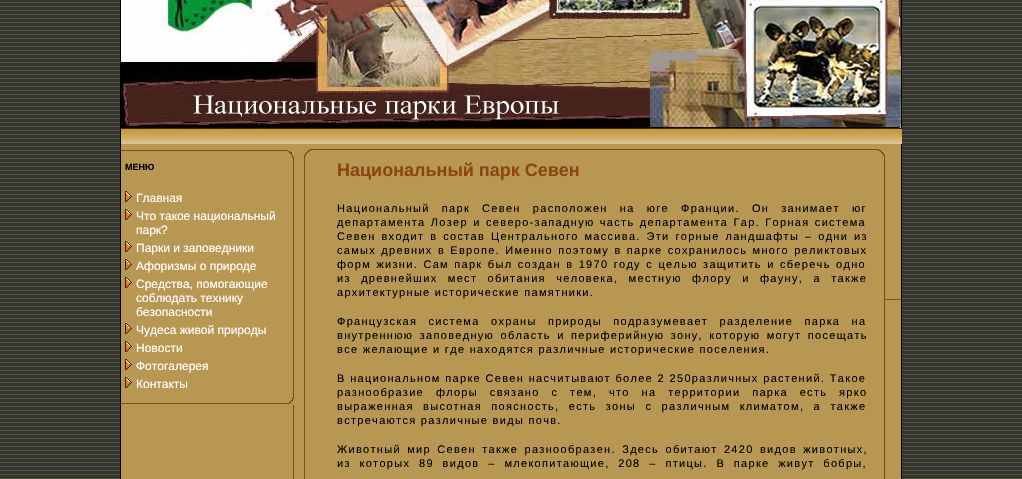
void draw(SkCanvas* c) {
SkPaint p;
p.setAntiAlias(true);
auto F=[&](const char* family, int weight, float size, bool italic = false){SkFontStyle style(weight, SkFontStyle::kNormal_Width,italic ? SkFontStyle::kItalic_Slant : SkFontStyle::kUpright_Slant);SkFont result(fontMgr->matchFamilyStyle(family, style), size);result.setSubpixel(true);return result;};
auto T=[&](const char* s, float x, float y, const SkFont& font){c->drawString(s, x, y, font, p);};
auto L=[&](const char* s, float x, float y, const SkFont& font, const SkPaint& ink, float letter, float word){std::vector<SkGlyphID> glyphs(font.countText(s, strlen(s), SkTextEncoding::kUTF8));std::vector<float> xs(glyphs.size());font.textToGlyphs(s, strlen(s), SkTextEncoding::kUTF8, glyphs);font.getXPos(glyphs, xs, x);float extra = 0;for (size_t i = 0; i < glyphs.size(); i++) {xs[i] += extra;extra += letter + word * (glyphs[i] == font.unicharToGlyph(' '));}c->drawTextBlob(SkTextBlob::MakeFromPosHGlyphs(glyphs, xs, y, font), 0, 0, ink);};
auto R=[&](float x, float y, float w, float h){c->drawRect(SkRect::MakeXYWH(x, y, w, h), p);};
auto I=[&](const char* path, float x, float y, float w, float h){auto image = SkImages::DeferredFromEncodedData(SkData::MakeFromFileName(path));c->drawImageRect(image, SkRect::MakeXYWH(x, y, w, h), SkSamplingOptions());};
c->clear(0xffffffff);
I("1.png",0,0,1022,479);
p.setColor(0xff000000);
R(120,0,1,479);
I("2.png",121,0,780,129);
R(901,0,1,129);
I("3.png",121,129,781,15);
I("4.png",121,144,179,16);
I("5.png",300,144,601,16);
R(901,144,1,335);
I("6.png",121,160,179,319);
auto f1 = F("Liberation Sans",700,9);
T("МЕНЮ",125,170,f1);
I("7.png",125,191,7,11);
auto f2 = F("Liberation Sans",400,12);
p.setColor(0xffffffff);
T("Главная",136,202,f2);
I("7.png",125,209,7,11);
T("Что такое национальный",136,220,f2);
T("парк?",136,234,f2);
I("7.png",125,241,7,11);
T("Парки и заповедники",136,252,f2);
I("7.png",125,259,7,11);
T("Афоризмы о природе",136,270,f2);
I("7.png",125,277,7,11);
T("Средства, помогающие",136,288,f2);
T("соблюдать технику",136,302,f2);
T("безопасности",136,316,f2);
I("7.png",125,323,7,11);
T("Чудеса живой природы",136,334,f2);
I("7.png",125,341,7,11);
T("Новости",136,352,f2);
I("7.png",125,359,7,11);
T("Фотогалерея",136,370,f2);
I("7.png",125,377,7,11);
T("Контакты",136,388,f2);
I("8.png",121,393,176,12);
I("9.png",300,160,601,319);
auto f3 = F("Liberation Sans",700,18);
p.setColor(0xff8b4513);
T("Национальный парк Севен",337,176,f3);
auto f4 = F("Liberation Sans",400,11);
p.setColor(0xff000000);
L("Национальный парк Севен расположен на юге Франции. Он занимает юг",337,212,f4,p,1.3,7.75);
L("департамента Лозер и северо-западную часть департамента Гар. Горная система",337,226,f4,p,1.3,1);
L("Севен входит в состав Центрального массива. Эти горные ландшафты – одни из",337,240,f4,p,1.3,1.5);
L("самых древних в Европе. Именно поэтому в парке сохранилось много реликтовых",337,254,f4,p,1.3,.9);
L("форм жизни. Сам парк был создан в 1970 году с целью защитить и сберечь одно",337,268,f4,p,1.3,1);
L("из древнейших мест обитания человека, местную флору и фауну, а также",337,282,f4,p,1.3,6);
L("архитектурные исторические памятники.",337,296,f4,p,1.3,0);
L("Французская система охраны природы подразумевает разделение парка на",337,325,f4,p,1.3,7);
L("внутреннюю заповедную область и периферийную зону, которую могут посещать",337,339,f4,p,1.3,2);
L("все желающие и где находятся различные исторические поселения.",337,353,f4,p,1.3,0);
L("В национальном парке Севен насчитывают более 2 250различных растений. Такое",337,382,f4,p,1.3,.25);
L("разнообразие флоры связано с тем, что на территории парка есть ярко",337,396,f4,p,1.3,7.5);
L("выраженная высотная поясность, есть зоны с различным климатом, а также",337,410,f4,p,1.3,5);
L("встречаются различные виды почв.",337,424,f4,p,1.3,0);
L("Животный мир Севен также разнообразен. Здесь обитают 2420 видов животных,",337,453,f4,p,1.3,2);
L("из которых 89 видов – млекопитающие, 208 – птицы. В парке живут бобры,",337,467,f4,p,1.3,4.4);
}
